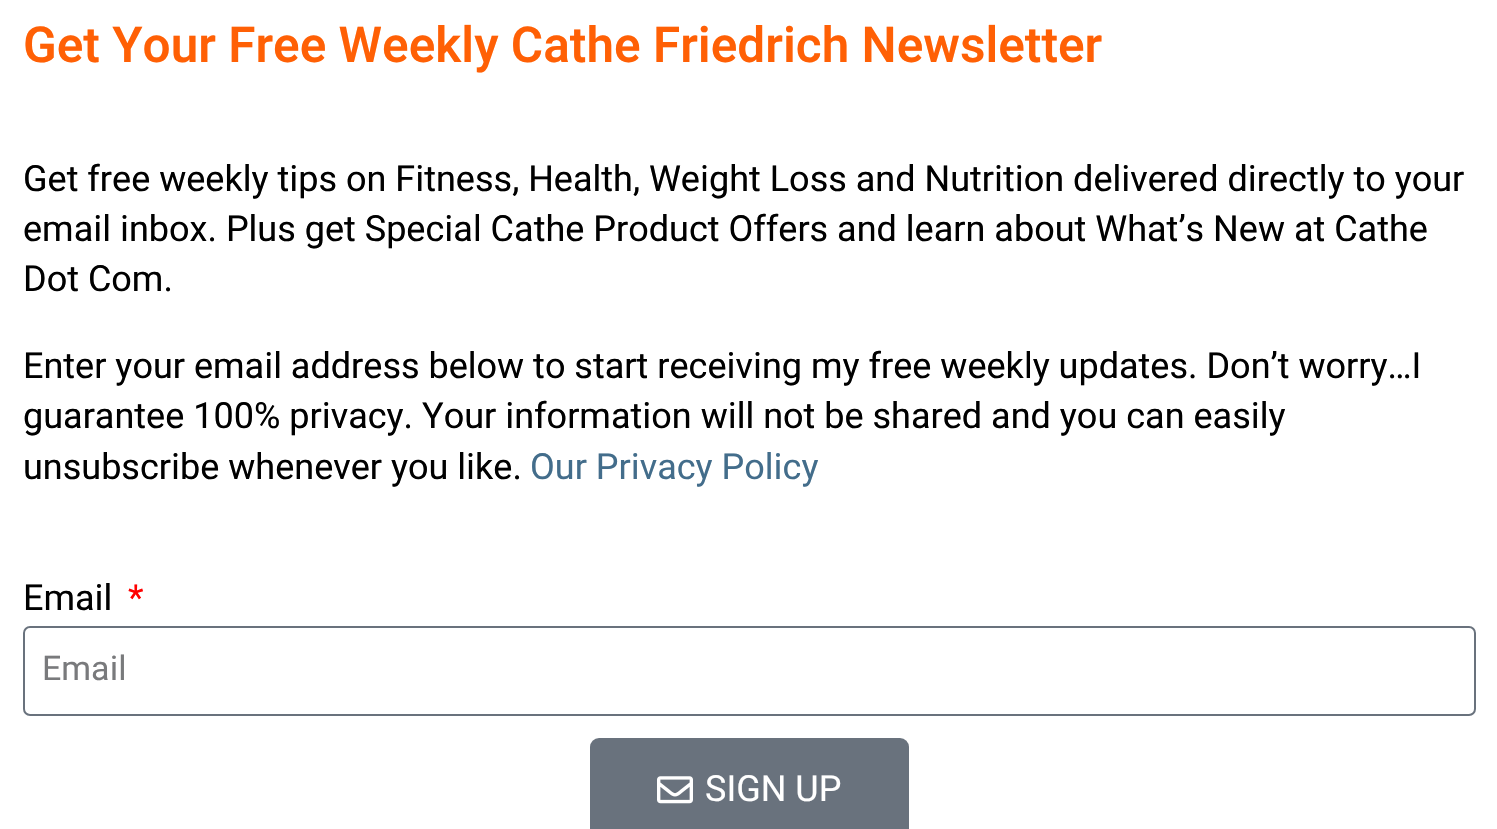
void draw(SkCanvas* c) {
SkPaint p;
p.setAntiAlias(true);
auto F=[&](const char* family, int weight, float size, bool italic = false){SkFontStyle style(weight, SkFontStyle::kNormal_Width,italic ? SkFontStyle::kItalic_Slant : SkFontStyle::kUpright_Slant);SkFont result(fontMgr->matchFamilyStyle(family, style), size);result.setSubpixel(true);return result;};
auto T=[&](const char* s, float x, float y, const SkFont& font){c->drawString(s, x, y, font, p);};
auto Q=[&](float x, float y, float w, float h, float radius){c->drawRoundRect(SkRect::MakeXYWH(x, y, w, h), radius, radius, p);};
auto I=[&](const char* path, float x, float y, float w, float h){auto image = SkImages::DeferredFromEncodedData(SkData::MakeFromFileName(path));c->drawImageRect(image, SkRect::MakeXYWH(x, y, w, h), SkSamplingOptions());};
c->clear(0xffffffff);
auto f1 = F("Heebo",600,49.5);
p.setColor(0xffff6005);
T("Get Your Free Weekly Cathe Friedrich Newsletter",23,62,f1);
auto f2 = F("Heebo",400,36);
p.setColor(0xff000000);
T("Get free weekly tips on Fitness, Health, Weight Loss and Nutrition delivered directly to your",23,191,f2);
T("email inbox. Plus get Special Cathe Product Offers and learn about What’s New at Cathe",23,241,f2);
T("Dot Com.",23,291,f2);
T("Enter your email address below to start receiving my free weekly updates. Don’t worry…I",23,378,f2);
T("guarantee 100% privacy. Your information will not be shared and you can easily",23,428,f2);
T("unsubscribe whenever you like.",23,479,f2);
p.setColor(0xff436d8b);
T("Our Privacy Policy",530,479,f2);
p.setColor(0xff000000);
T("Email",23,610,f2);
p.setColor(0xffff0000);
T("*",128,610,f2);
p.setStroke(true);
p.setStrokeWidth(2);
p.setColor(0xff69727d);
c->drawRoundRect(SkRect::MakeXYWH(24,627,1451,88),6,6,p);
auto f3 = F("Heebo",400,34);
p.setStroke(false);
p.setColor(0xff797a7c);
T("Email",42,680,f3);
p.setColor(0xff69727d);
Q(590,738,319,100,9);
I("1.png",657,776,36,28);
p.setColor(0xffffffff);
T("SIGN UP",705,801,f2);
}
